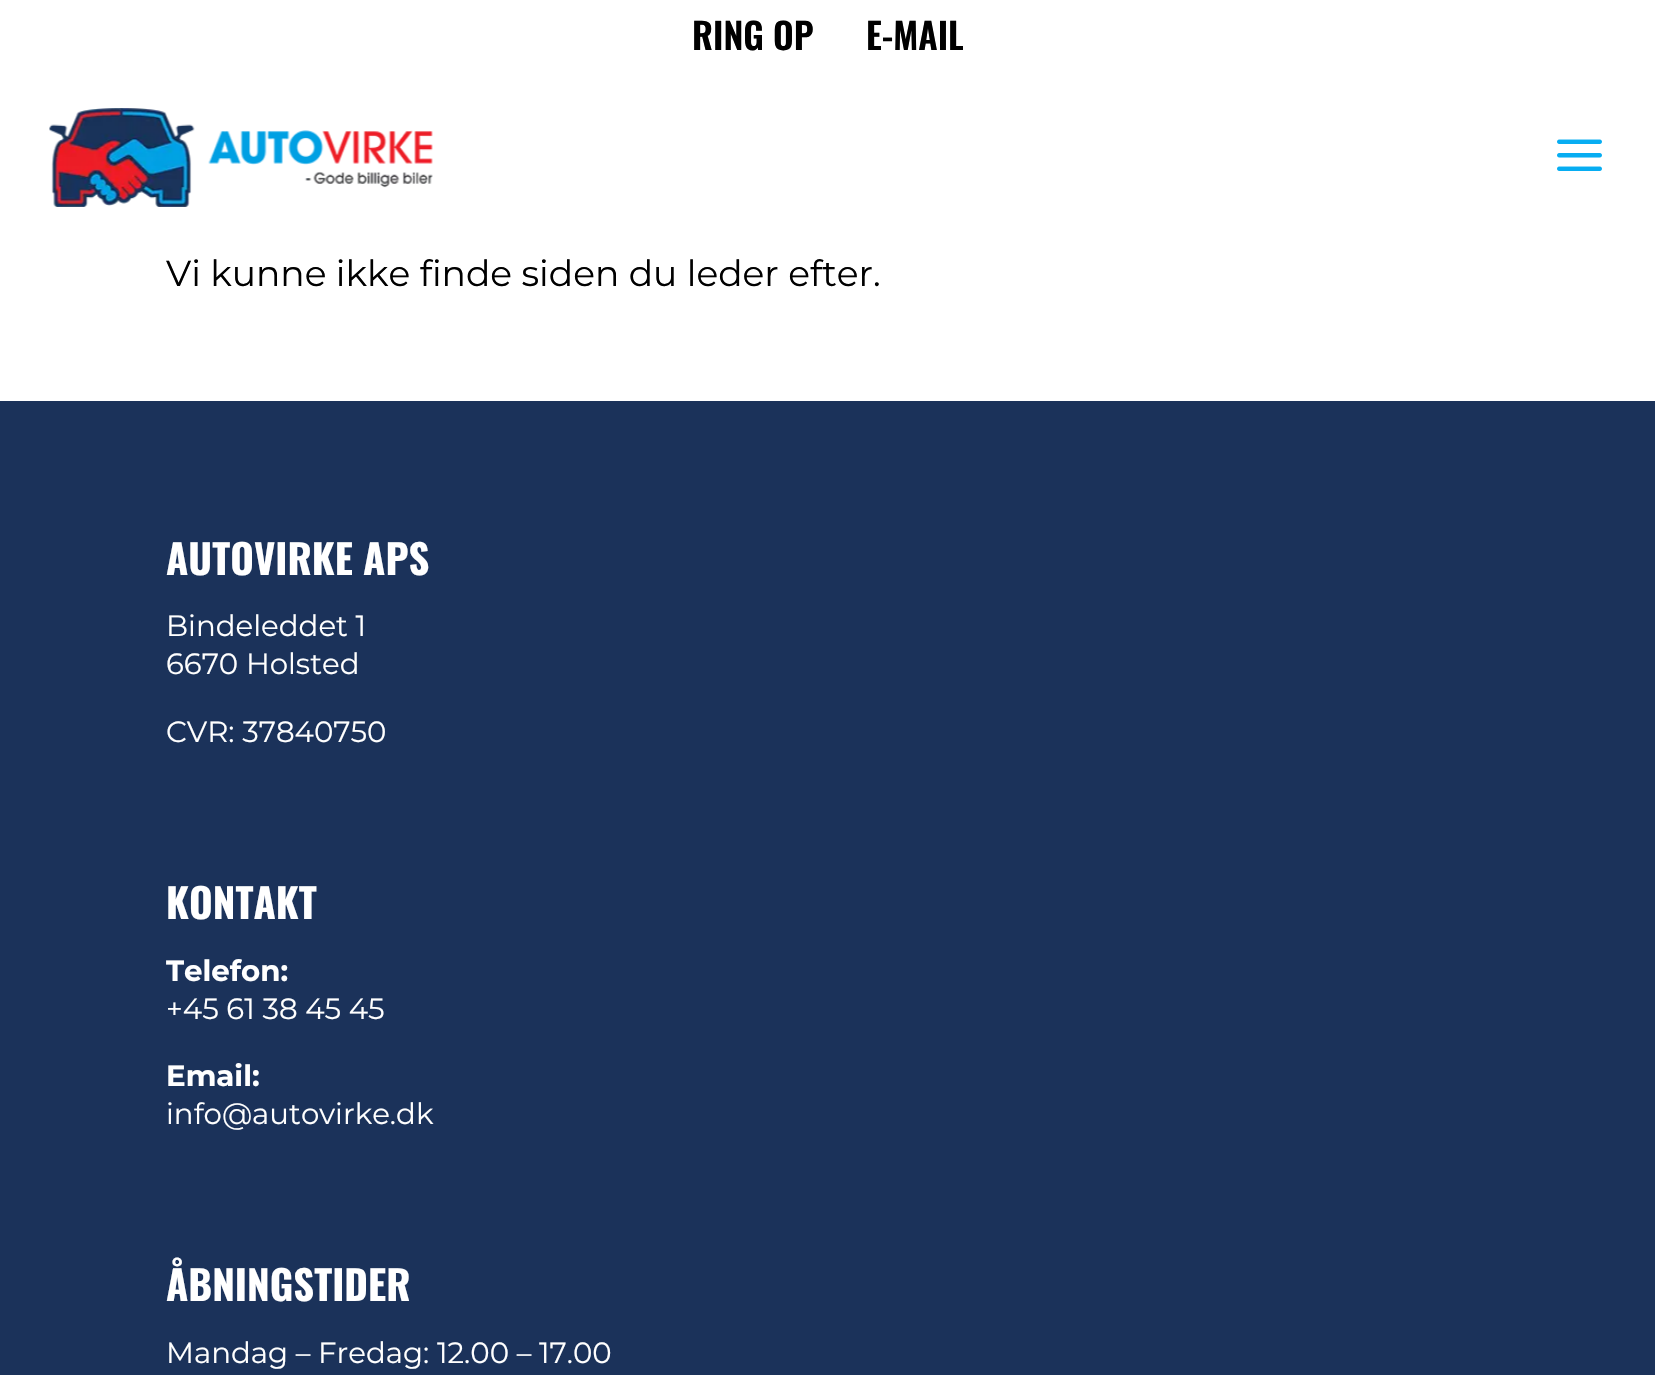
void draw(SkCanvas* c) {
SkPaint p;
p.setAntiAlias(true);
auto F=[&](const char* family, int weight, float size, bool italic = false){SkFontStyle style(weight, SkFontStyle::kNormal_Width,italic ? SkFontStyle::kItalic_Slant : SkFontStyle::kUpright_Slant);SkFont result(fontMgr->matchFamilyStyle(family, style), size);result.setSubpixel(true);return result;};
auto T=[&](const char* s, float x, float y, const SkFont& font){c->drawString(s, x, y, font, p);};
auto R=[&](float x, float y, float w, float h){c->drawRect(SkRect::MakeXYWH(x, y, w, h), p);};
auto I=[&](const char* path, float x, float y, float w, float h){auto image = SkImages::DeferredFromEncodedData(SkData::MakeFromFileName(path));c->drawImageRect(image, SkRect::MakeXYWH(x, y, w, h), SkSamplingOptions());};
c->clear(0xffffffff);
auto f1 = F("Oswald",600,36);
p.setColor(0xff000000);
T("RING OP",692,50,f1);
T("E-MAIL",866,50,f1);
I("1.png",49,108,384,99);
I("2.png",1557,139,45,32);
auto f2 = F("Montserrat",100,36);
T("Vi kunne ikke finde siden du leder efter.",166,286,f2);
p.setColor(0xff1b325a);
R(0,401,1655,974);
auto f3 = F("Oswald",700,40.5);
p.setColor(0xffffffff);
T("AUTOVIRKE APS",166,575,f3);
auto f4 = F("Montserrat",100,29.25);
T("Bindeleddet 1",166,636,f4);
T("6670 Holsted",166,674,f4);
T("CVR: 37840750",166,742,f4);
T("KONTAKT",166,919,f3);
auto f5 = F("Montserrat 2",100,29.25);
T("Telefon:",166,981,f5);
T("+45 61 38 45 45",166,1019,f4);
T("Email:",166,1086,f5);
T("info@autovirke.dk",166,1124,f4);
T("ÅBNINGSTIDER",166,1301,f3);
T("Mandag – Fredag: 12.00 – 17.00",166,1363,f4);
}
